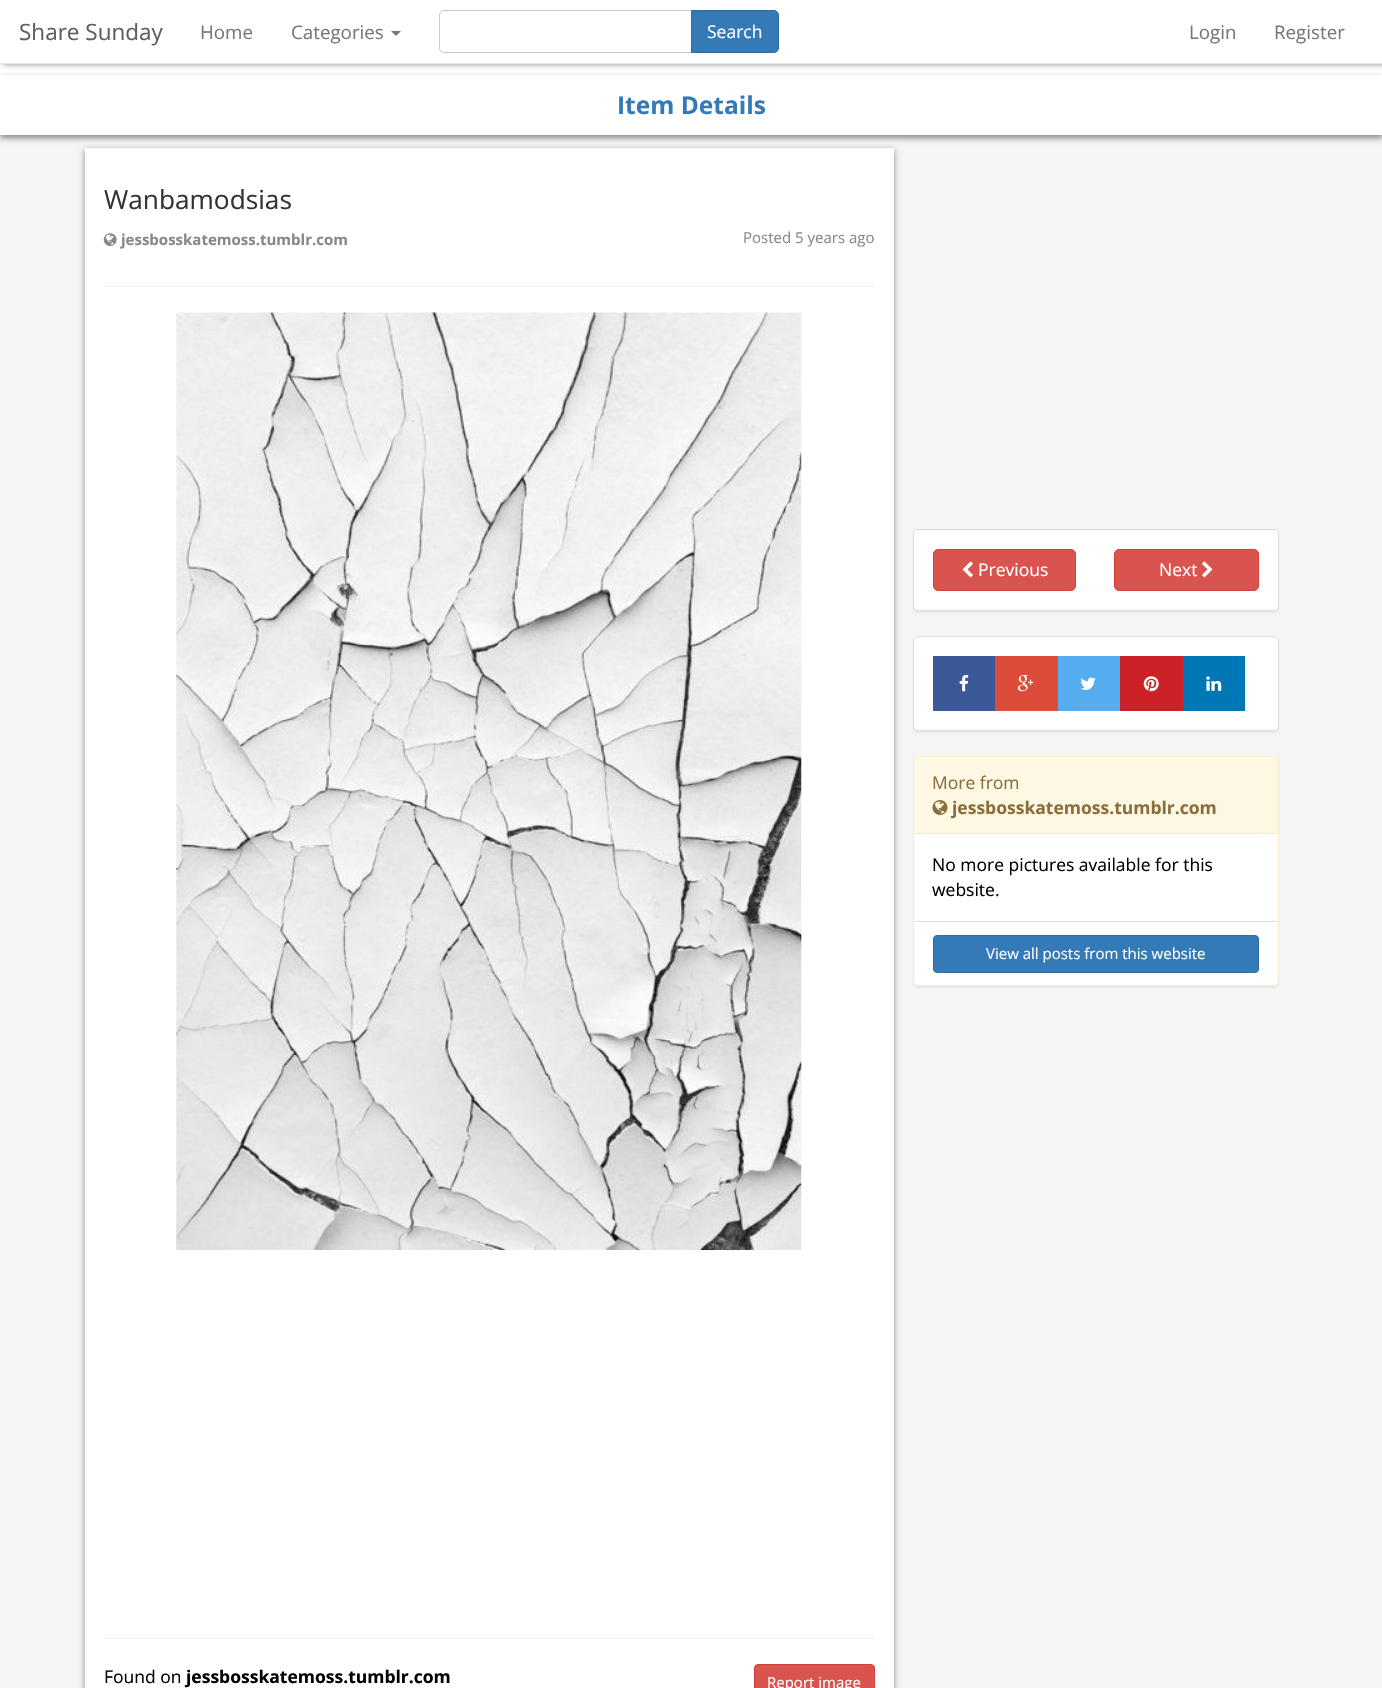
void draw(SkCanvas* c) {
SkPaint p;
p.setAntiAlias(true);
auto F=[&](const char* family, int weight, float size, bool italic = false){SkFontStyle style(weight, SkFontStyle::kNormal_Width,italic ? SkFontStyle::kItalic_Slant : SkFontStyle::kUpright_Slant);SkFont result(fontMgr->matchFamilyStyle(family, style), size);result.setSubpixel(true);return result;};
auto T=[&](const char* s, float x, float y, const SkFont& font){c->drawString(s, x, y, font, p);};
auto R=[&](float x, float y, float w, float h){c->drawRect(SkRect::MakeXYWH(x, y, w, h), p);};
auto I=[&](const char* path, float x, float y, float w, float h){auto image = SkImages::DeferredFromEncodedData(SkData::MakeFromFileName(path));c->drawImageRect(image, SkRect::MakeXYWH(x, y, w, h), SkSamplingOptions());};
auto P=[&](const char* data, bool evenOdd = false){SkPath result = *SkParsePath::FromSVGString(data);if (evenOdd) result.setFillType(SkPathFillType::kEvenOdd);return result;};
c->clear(0xffffffff);
c->save();
c->clipRect(SkRect::MakeXYWH(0,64,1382,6));
p.setColor(0xff888888);
p.setMaskFilter(SkMaskFilter::MakeBlur(kNormal_SkBlurStyle, 3));
c->drawRect(SkRect::MakeXYWH(3,0,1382,64),p);
p.setMaskFilter(nullptr);
c->restore();
p.setColor(0xffe7e7e7);
R(0,63,1382,1);
auto f1 = F("Open Sans",400,22.5);
p.setColor(0xff5e5e5e);
T("Share Sunday",19,40,f1);
auto f2 = F("Open Sans",400,18.75);
p.setColor(0xff777777);
T("Home",200,39,f2);
T("Categories",291,39,f2);
c->drawPath(P("M391 31h10l-5 5z"),p);
p.setStroke(true);
p.setStrokeWidth(1);
p.setColor(0xffcccccc);
c->drawPath(P("M444 10.5h248.5v42h-248.5c-2.5 0-4.5-2-4.5-4.5v-33c0-2.5 2-4.5 4.5-4.5z"),p);
p.setStroke(false);
p.setColor(0xff337ab7);
c->drawPath(P("M691.5 10.5h82.5c2.5 0 4.5 2 4.5 4.5v33c0 2.5-2 4.5-4.5 4.5h-82.5z"),p);
p.setStroke(true);
p.setColor(0xff2e6da4);
c->drawPath(P("M691.5 10.5h82.5c2.5 0 4.5 2 4.5 4.5v33c0 2.5-2 4.5-4.5 4.5h-82.5z"),p);
auto f3 = F("Open Sans",400,17.5);
p.setStroke(false);
p.setColor(0xffffffff);
T("Search",707,38,f3);
p.setColor(0xff777777);
T("Login",1189,39,f2);
T("Register",1274,39,f2);
p.setColor(0xfff5f5f5);
R(0,135,1382,1553);
p.setColor(0xff888888);
p.setMaskFilter(SkMaskFilter::MakeBlur(kNormal_SkBlurStyle, 3));
c->drawRect(SkRect::MakeXYWH(0,78,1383,60),p);
p.setMaskFilter(nullptr);
p.setColor(0xffffffff);
R(0,75,1382,60);
auto f4 = F("Open Sans",700,24.5);
p.setColor(0xff337ab7);
T("Item Details",617,114,f4);
p.setColor(0xff888888);
p.setMaskFilter(SkMaskFilter::MakeBlur(kNormal_SkBlurStyle, 3));
c->drawRect(SkRect::MakeXYWH(85,150,809,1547),p);
p.setMaskFilter(nullptr);
p.setColor(0xffffffff);
R(85,148,809,1540);
auto f5 = F("Open Sans",400,26.25);
p.setColor(0xff333333);
T("Wanbamodsias",104,209,f5);
I("1.png",103,233,14,13);
auto f6 = F("Open Sans",700,15);
p.setColor(0xff888888);
T("jessbosskatemoss.tumblr.com",121,245,f6);
auto f7 = F("Open Sans",400,15);
T("Posted 5 years ago",743,243,f7);
p.setColor(0xffeeeeee);
R(104,286,771,1);
I("2.png",176,312,626,938);
R(104,1638,771,1);
p.setColor(0xff000000);
T("Found on",104,1683,f3);
auto f8 = F("Open Sans",700,17.5);
T("jessbosskatemoss.tumblr.com",186,1683,f8);
p.setColor(0xffd9534f);
c->drawRoundRect(SkRect::MakeXYWH(754.5,1664.5,120,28),3.5,3.5,p);
p.setStroke(true);
p.setColor(0xffd43f3a);
c->drawRoundRect(SkRect::MakeXYWH(754.5,1664.5,120,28),3.5,3.5,p);
p.setStroke(false);
p.setColor(0xffffffff);
T("Report image",767,1688,f7);
p.setColor(0x0d000000);
p.setMaskFilter(SkMaskFilter::MakeBlur(kNormal_SkBlurStyle, .5));
c->drawRoundRect(SkRect::MakeXYWH(913,530,366,83),5,5,p);
p.setMaskFilter(nullptr);
p.setColor(0xffffffff);
c->drawRoundRect(SkRect::MakeXYWH(913.5,529.5,365,81),4.5,4.5,p);
p.setStroke(true);
p.setColor(0xffdddddd);
c->drawRoundRect(SkRect::MakeXYWH(913.5,529.5,365,81),4.5,4.5,p);
p.setStroke(false);
p.setColor(0xffd9534f);
c->drawRoundRect(SkRect::MakeXYWH(933.5,549.5,142,41),4.5,4.5,p);
p.setStroke(true);
p.setColor(0xffd43f3a);
c->drawRoundRect(SkRect::MakeXYWH(933.5,549.5,142,41),4.5,4.5,p);
I("3.png",962,561,11,17);
p.setStroke(false);
p.setColor(0xffffffff);
T("Previous",978,576,f3);
p.setColor(0xffd9534f);
c->drawRoundRect(SkRect::MakeXYWH(1114.5,549.5,144,41),4.5,4.5,p);
p.setStroke(true);
p.setColor(0xffd43f3a);
c->drawRoundRect(SkRect::MakeXYWH(1114.5,549.5,144,41),4.5,4.5,p);
p.setStroke(false);
p.setColor(0xffffffff);
T("Next",1159,576,f3);
I("4.png",1202,561,11,17);
p.setColor(0x0d000000);
p.setMaskFilter(SkMaskFilter::MakeBlur(kNormal_SkBlurStyle, .5));
c->drawRoundRect(SkRect::MakeXYWH(913,638,366,95),5,5,p);
p.setMaskFilter(nullptr);
p.setColor(0xffffffff);
c->drawRoundRect(SkRect::MakeXYWH(913.5,636.5,365,94),4.5,4.5,p);
p.setStroke(true);
p.setColor(0xffdddddd);
c->drawRoundRect(SkRect::MakeXYWH(913.5,636.5,365,94),4.5,4.5,p);
p.setStroke(false);
p.setColor(0xff3b5998);
R(933,656,62,55);
I("5.png",959,675,10,17);
p.setColor(0xffdd4b39);
R(995,656,63,55);
I("6.png",1017,675,17,17);
p.setColor(0xff55acee);
R(1058,656,62,55);
I("7.png",1080,677,16,13);
p.setColor(0xffcc2127);
R(1120,656,63,55);
I("8.png",1143,676,16,16);
p.setColor(0xff0077b5);
R(1183,656,62,55);
I("9.png",1206,676,16,15);
p.setColor(0x0d000000);
p.setMaskFilter(SkMaskFilter::MakeBlur(kNormal_SkBlurStyle, .5));
c->drawRoundRect(SkRect::MakeXYWH(913,758,366,230),5,5,p);
p.setMaskFilter(nullptr);
p.setColor(0xffffffff);
c->drawRoundRect(SkRect::MakeXYWH(913.5,756.5,365,229),4.5,4.5,p);
p.setStroke(true);
p.setColor(0xfffaebcc);
c->drawRoundRect(SkRect::MakeXYWH(913.5,756.5,365,229),4.5,4.5,p);
p.setStroke(false);
p.setColor(0xfffcf8e3);
c->drawPath(P("M918 758h356c2 0 4 2 4 4v72h-364v-72c0-2 2-4 4-4z"),p);
p.setColor(0xfffaebcc);
R(914,833,364,1);
p.setColor(0xff8a6d3b);
T("More from",932,789,f3);
I("10.png",932,800,16,15);
T("jessbosskatemoss.tumblr.com",952,814,f8);
p.setColor(0xff000000);
T("No more pictures available for this",932,871,f3);
T("website.",932,896,f3);
p.setColor(0xffffffff);
c->drawPath(P("M914 921h364v60c0 2-2 4-4 4h-356c-2 0-4-2-4-4z"),p);
p.setColor(0xffdddddd);
R(914,921,364,1);
p.setColor(0xff337ab7);
c->drawRoundRect(SkRect::MakeXYWH(933.5,935.5,325,37),3.5,3.5,p);
p.setStroke(true);
p.setColor(0xff2e6da4);
c->drawRoundRect(SkRect::MakeXYWH(933.5,935.5,325,37),3.5,3.5,p);
p.setStroke(false);
p.setColor(0xffffffff);
T("View all posts from this website",986,959,f7);
}
